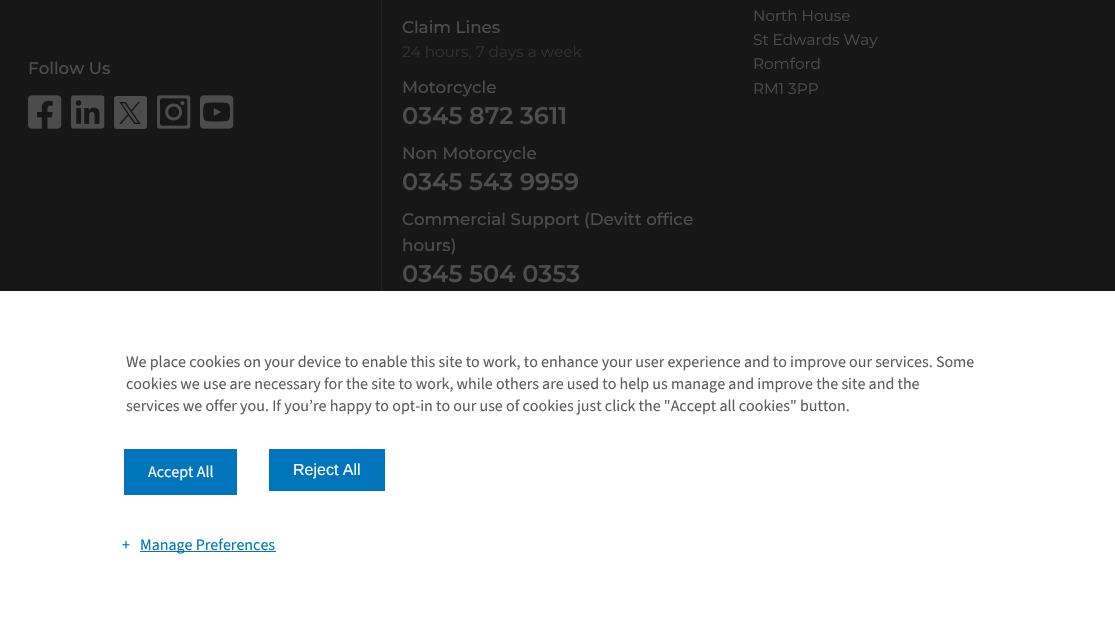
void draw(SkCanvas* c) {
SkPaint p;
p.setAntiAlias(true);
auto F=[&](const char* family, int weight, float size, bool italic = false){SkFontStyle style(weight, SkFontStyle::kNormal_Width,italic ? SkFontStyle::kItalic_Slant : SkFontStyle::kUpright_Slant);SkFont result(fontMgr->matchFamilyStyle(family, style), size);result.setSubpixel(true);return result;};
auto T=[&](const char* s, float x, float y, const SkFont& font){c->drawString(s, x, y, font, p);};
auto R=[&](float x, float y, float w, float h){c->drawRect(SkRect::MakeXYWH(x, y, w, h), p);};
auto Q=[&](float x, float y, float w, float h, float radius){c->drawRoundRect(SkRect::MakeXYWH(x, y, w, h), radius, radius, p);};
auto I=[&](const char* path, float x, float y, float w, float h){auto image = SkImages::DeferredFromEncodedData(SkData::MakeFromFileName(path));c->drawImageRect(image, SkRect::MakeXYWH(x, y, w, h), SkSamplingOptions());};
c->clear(0xff171717);
auto f1 = F("Montserrat",500,16.75);
p.setColor(0xff4d4d4d);
T("Follow Us",28,74,f1);
I("1.png",28,95,34,34);
I("2.png",71,95,34,34);
Q(114,96,33,33,3);
I("3.png",119,102,22,22);
I("4.png",157,95,34,34);
I("5.png",200,95,34,34);
p.setColor(0xff232323);
R(381,0,1,291);
p.setColor(0xff4d4d4d);
T("Claim Lines",402,33,f1);
auto f2 = F("Montserrat",400,15.25);
p.setColor(0xff313131);
T("24 hours, 7 days a week",402,57,f2);
p.setColor(0xff4d4d4d);
T("Motorcycle",402,93,f1);
auto f3 = F("Montserrat",600,24);
T("0345 872 3611",402,124,f3);
T("Non Motorcycle",402,159,f1);
T("0345 543 9959",402,190,f3);
T("Commercial Support (Devitt office",402,225,f1);
T("hours)",402,251,f1);
T("0345 504 0353",402,282,f3);
T("North House",753,21,f2);
T("St Edwards Way",753,45,f2);
T("Romford",753,69,f2);
T("RM1 3PP",753,94,f2);
p.setColor(0xffffffff);
R(0,291,1115,332);
auto f4 = F("Source Sans 3",400,16);
p.setColor(0xff5d5d5d);
T("We place cookies on your device to enable this site to work, to enhance your user experience and to improve our services. Some",126,367,f4);
T("cookies we use are necessary for the site to work, while others are used to help us manage and improve the site and the",126,389,f4);
T("services we offer you. If you’re happy to opt-in to our use of cookies just click the \"Accept all cookies\" button.",126,411,f4);
p.setColor(0xff0075bc);
R(124,449,113,46);
p.setColor(0xffffffff);
T("Accept All",148,477,f4);
p.setColor(0xff0075bc);
R(269,449,116,42);
auto f5 = F("Liberation Sans",400,16);
p.setColor(0xffffffff);
T("Reject All",293,475,f5);
p.setColor(0xff0075bc);
T("+",122,550,f4);
R(140,551,136,1);
T("Manage Preferences",140,550,f4);
}
